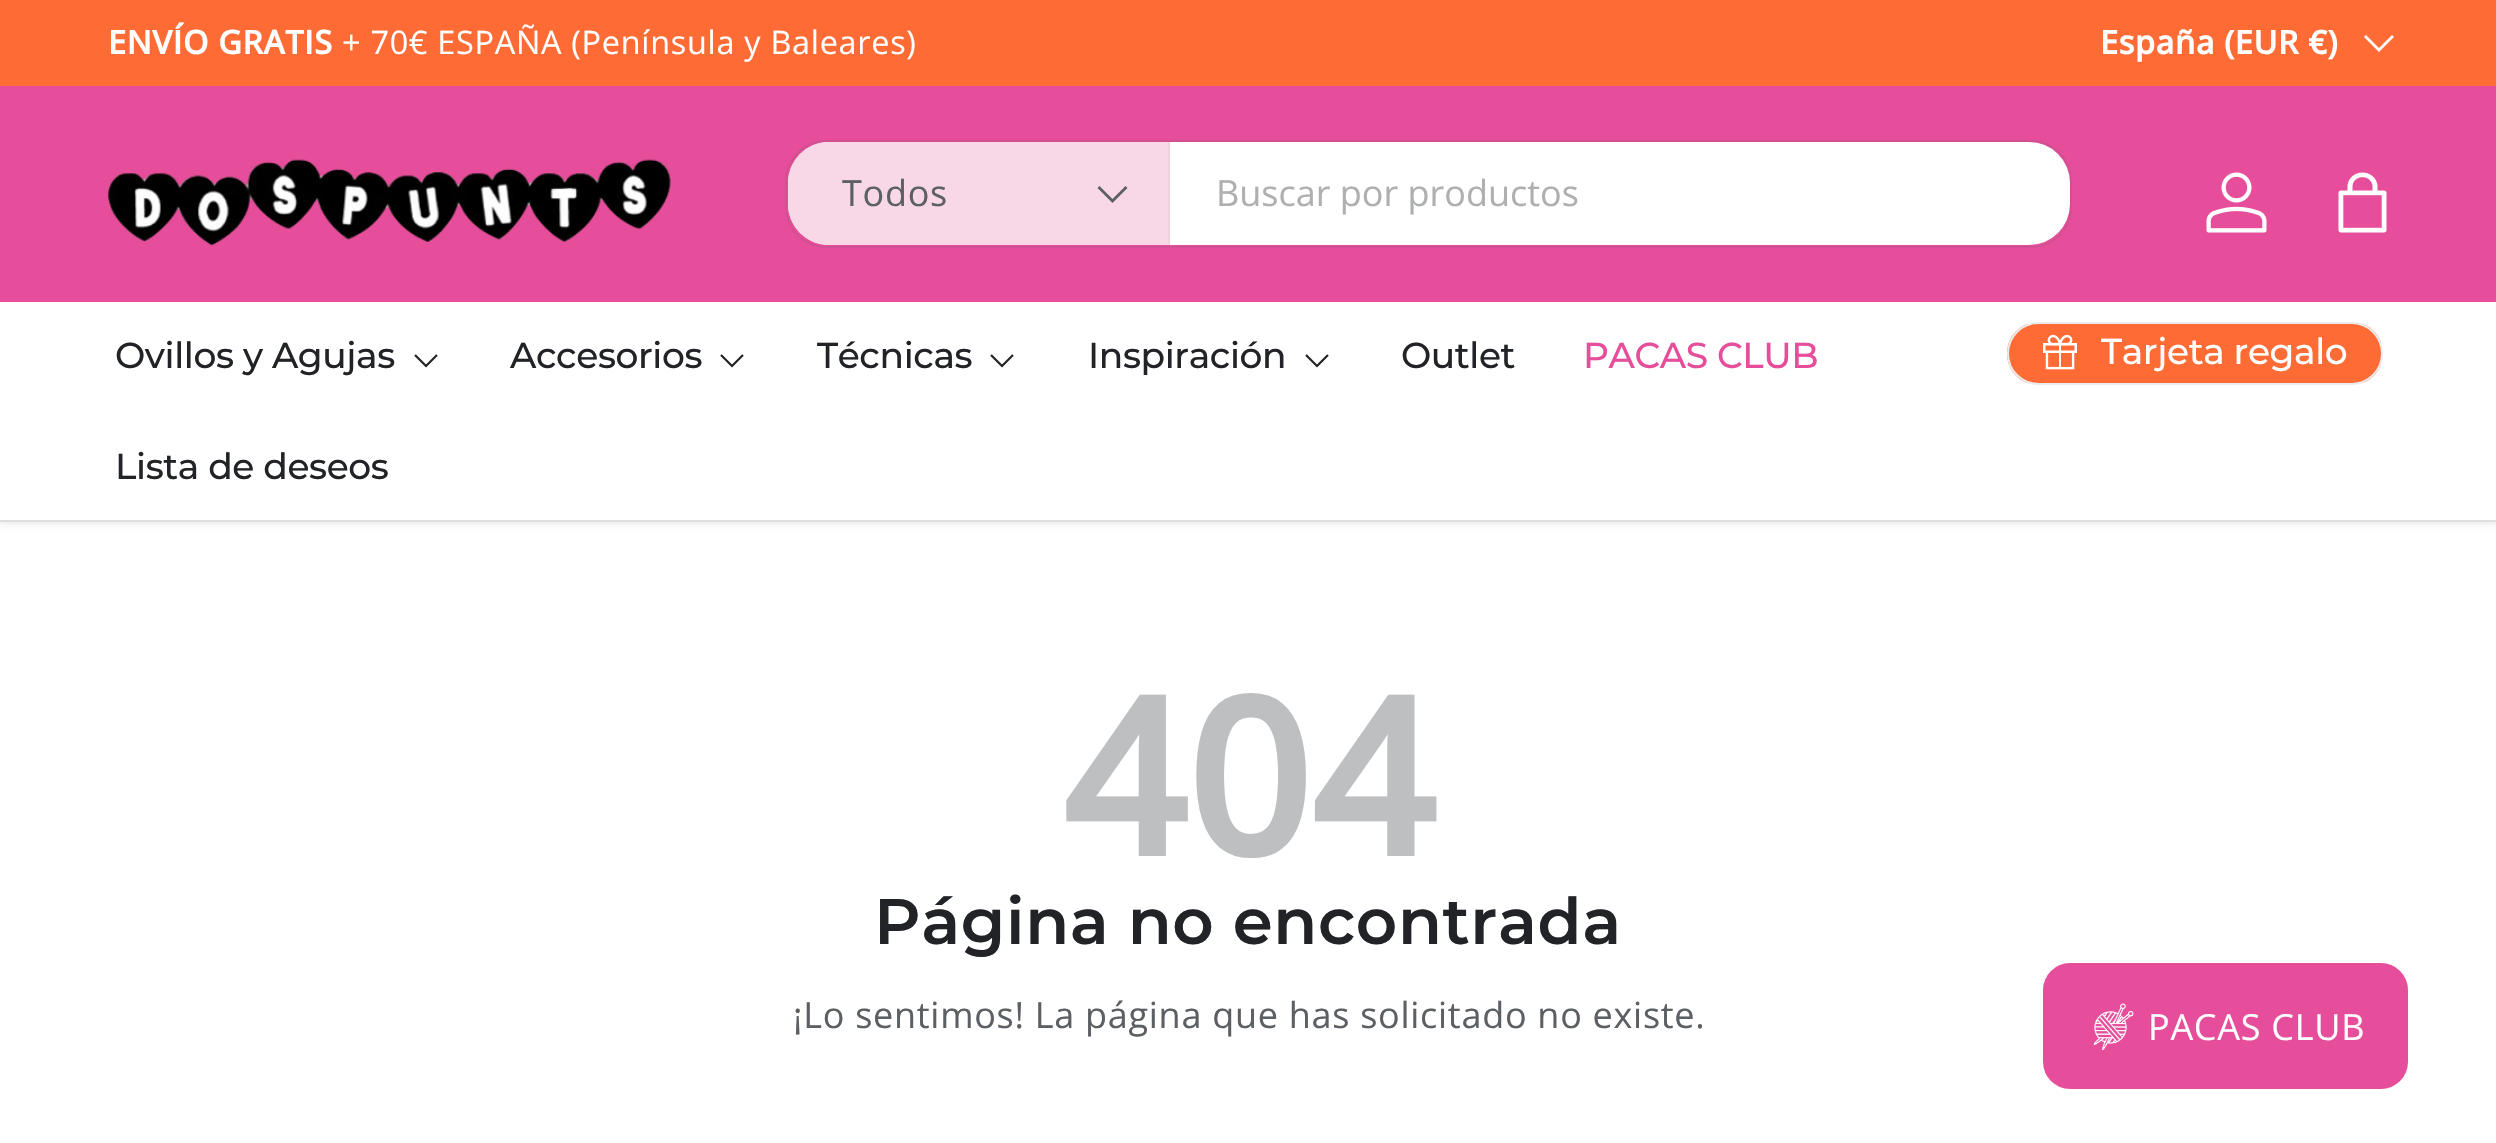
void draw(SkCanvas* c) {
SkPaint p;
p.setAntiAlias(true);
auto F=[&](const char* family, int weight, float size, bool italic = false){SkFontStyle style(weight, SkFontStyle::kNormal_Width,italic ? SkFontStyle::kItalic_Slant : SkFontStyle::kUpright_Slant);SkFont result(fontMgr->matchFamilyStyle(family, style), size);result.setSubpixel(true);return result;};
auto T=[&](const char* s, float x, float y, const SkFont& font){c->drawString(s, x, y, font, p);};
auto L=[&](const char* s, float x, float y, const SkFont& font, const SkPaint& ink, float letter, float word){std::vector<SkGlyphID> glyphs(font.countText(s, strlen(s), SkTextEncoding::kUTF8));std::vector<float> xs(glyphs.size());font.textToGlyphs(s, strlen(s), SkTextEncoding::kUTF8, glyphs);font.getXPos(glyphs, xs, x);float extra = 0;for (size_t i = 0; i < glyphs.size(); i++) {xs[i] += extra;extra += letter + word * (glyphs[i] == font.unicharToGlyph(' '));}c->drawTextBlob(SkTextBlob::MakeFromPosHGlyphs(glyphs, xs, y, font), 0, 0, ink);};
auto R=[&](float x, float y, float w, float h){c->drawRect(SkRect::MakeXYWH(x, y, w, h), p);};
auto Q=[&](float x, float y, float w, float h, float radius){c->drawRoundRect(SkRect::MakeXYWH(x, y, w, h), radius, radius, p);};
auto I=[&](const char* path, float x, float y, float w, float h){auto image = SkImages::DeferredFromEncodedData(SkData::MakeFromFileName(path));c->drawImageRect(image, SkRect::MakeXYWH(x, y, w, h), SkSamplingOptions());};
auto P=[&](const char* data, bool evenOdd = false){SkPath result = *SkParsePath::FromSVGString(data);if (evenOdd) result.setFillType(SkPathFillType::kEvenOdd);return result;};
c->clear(0xffffffff);
p.setColor(0x14000000);
p.setMaskFilter(SkMaskFilter::MakeBlur(kNormal_SkBlurStyle, 3.5));
c->drawRect(SkRect::MakeXYWH(-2,83,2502,441),p);
p.setMaskFilter(nullptr);
p.setColor(0xffff6b35);
R(0,0,2496,86);
auto f1 = F("Open Sans",700,32.4);
p.setColor(0xffffffff);
L("ENVÍO GRATIS",108,54,f1,p,.72,0);
auto f2 = F("Open Sans",400,32.4);
L("+ 70€ ESPAÑA (Península y Baleares)",342,54,f2,p,.72,0);
L("España (EUR €)",2100,54,f1,p,.72,0);
p.setStroke(true);
p.setStrokeWidth(2.8);
c->drawPath(P("M2393 36l-14 14l-14-14"),p);
p.setStroke(false);
p.setColor(0xffe64d9a);
R(0,86,2496,216);
I("1.png",108,159,563,87);
p.setStroke(true);
p.setStrokeWidth(2);
p.setColor(0xffd15092);
c->drawRoundRect(SkRect::MakeXYWH(786,141,1285,106),40,40,p);
p.setStroke(false);
p.setColor(0xffffffff);
Q(788,142,1282,103,41);
p.setColor(0xfff8d7e6);
c->drawPath(P("M829 142h341v103h-341c-22.5 0-41-18.5-41-41v-21c0-22.5 18.5-41 41-41z"),p);
p.setColor(0xfff0d1df);
R(1168,142,2,103);
auto f3 = F("Open Sans",400,36);
p.setColor(0xff5c5f63);
L("Todos",842,206,f3,p,.72,0);
p.setStroke(true);
p.setStrokeWidth(2.8);
c->drawPath(P("M1126.5 187l-14 14l-14-14"),p);
p.setStroke(false);
p.setColor(0xffaeafb1);
T("Buscar por productos",1216,206,f3);
I("2.png",2206,172,61,61);
I("3.png",2338,172,49,61);
p.setColor(0xffffffff);
R(0,302,2496,218);
auto f4 = F("Montserrat",500,36);
p.setColor(0xff212326);
L("Ovillos y Agujas",115,368,f4,p,-.4,0);
p.setStroke(true);
p.setStrokeWidth(2.2);
p.setColor(0xff222222);
c->drawPath(P("M437 355l-11 11l-11-11"),p);
p.setStroke(false);
p.setColor(0xff212326);
L("Accesorios",510,368,f4,p,-.4,0);
p.setStroke(true);
p.setColor(0xff222222);
c->drawPath(P("M743 355l-11 11l-11-11"),p);
p.setStroke(false);
p.setColor(0xff212326);
L("Técnicas",817,368,f4,p,-.4,0);
p.setStroke(true);
p.setColor(0xff222222);
c->drawPath(P("M1013 355l-11 11l-11-11"),p);
p.setStroke(false);
p.setColor(0xff212326);
L("Inspiración",1088,368,f4,p,-.4,0);
p.setStroke(true);
p.setColor(0xff222222);
c->drawPath(P("M1328 355l-11 11l-11-11"),p);
p.setStroke(false);
p.setColor(0xff212326);
L("Outlet",1401,368,f4,p,-.4,0);
p.setColor(0xffe64d9a);
L("PACAS CLUB",1583,368,f4,p,-.4,0);
p.setColor(0xff212326);
L("Lista de deseos",115,479,f4,p,-.4,0);
c->save();
c->clipPath(P("M2038.5 322h313c17.5 0 31.5 14 31.5 31.5c0 17.5-14 31.5-31.5 31.5h-313c-17.5 0-31.5-14-31.5-31.5c0-17.5 14-31.5 31.5-31.5z"),true);
{
const SkColor colors[] = {0xffff8c62,0xffff6b35,0xffff6b35};
const float stops[] = {.6,.6,1};
const SkPoint ends[] = {{1292,221}, {2355,486}};
p.setShader(SkGradientShader::MakeLinear(ends, colors, stops, 3, SkTileMode::kClamp));
p.setAlpha(255);
}
R(2007,324,374,59);
c->restore();
p.setStroke(true);
p.setStrokeWidth(2);
p.setShader(nullptr);
p.setColor(0xffebebeb);
c->drawRoundRect(SkRect::MakeXYWH(2008,323,374,61),30.5,30.5,p);
I("4.png",2043,334,34,36);
p.setStroke(false);
p.setColor(0xffffffff);
L("Tarjeta regalo",2101,364,f4,p,-.4,0);
p.setColor(0xffdedede);
R(0,520,2496,2);
auto f5 = F("Open Sans",700,216);
p.setColor(0xffbebfc1);
L("404",1062,856,f5,p,.72,0);
auto f6 = F("Montserrat",600,64.25);
p.setColor(0xff212326);
L("Página no encontrada",874,944,f6,p,.6,0);
p.setColor(0xff5c5f63);
L("¡Lo sentimos! La página que has solicitado no existe.",793,1028,f3,p,.72,0);
p.setColor(0xffe64d9a);
Q(2043,963,365,126,27);
I("5.png",2093,1003,41,48);
p.setColor(0xffffffff);
L("PACAS CLUB",2148,1040,f3,p,.72,0);
}
